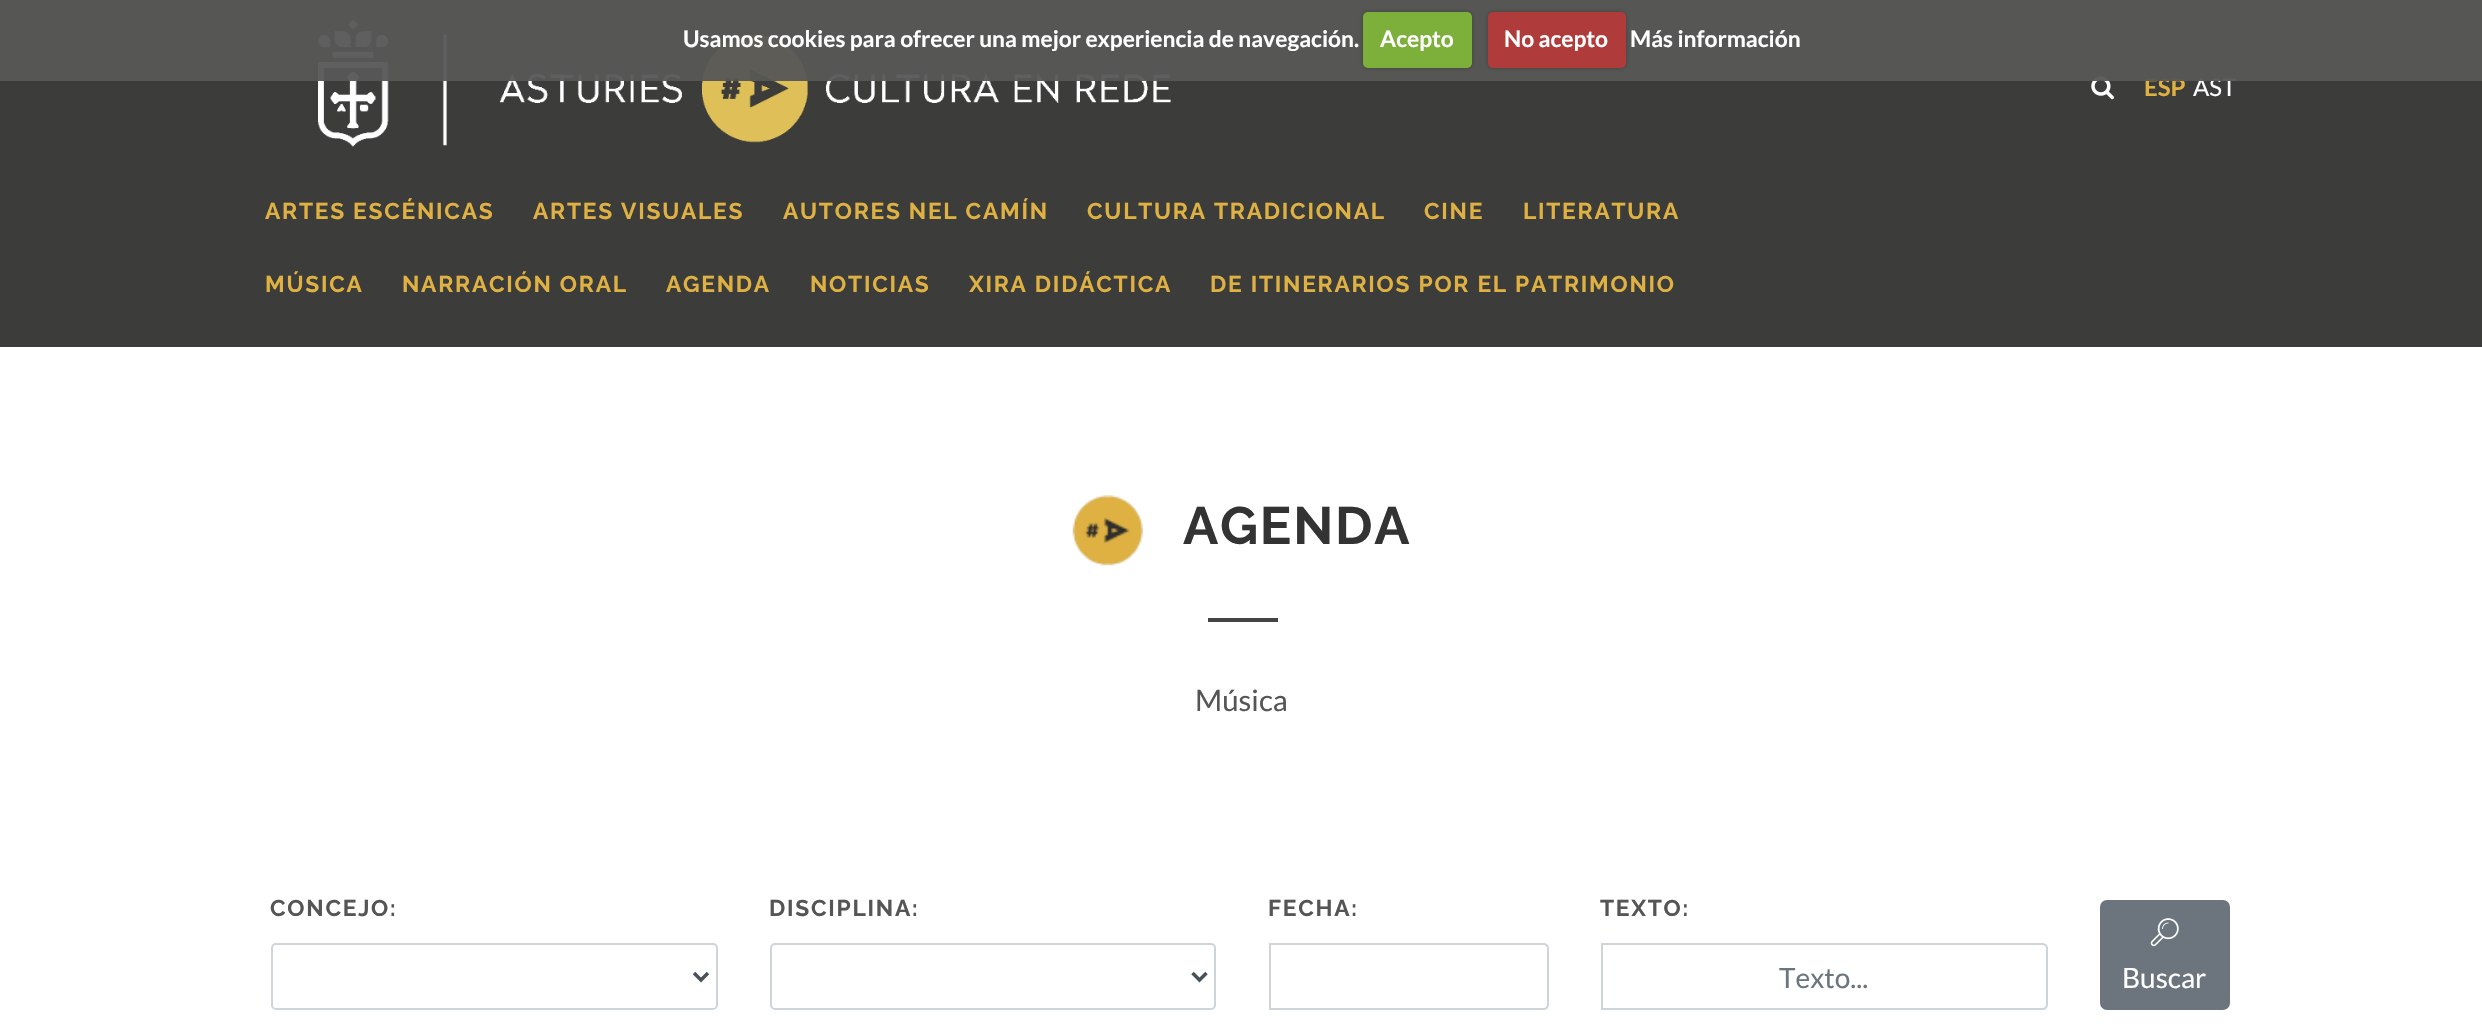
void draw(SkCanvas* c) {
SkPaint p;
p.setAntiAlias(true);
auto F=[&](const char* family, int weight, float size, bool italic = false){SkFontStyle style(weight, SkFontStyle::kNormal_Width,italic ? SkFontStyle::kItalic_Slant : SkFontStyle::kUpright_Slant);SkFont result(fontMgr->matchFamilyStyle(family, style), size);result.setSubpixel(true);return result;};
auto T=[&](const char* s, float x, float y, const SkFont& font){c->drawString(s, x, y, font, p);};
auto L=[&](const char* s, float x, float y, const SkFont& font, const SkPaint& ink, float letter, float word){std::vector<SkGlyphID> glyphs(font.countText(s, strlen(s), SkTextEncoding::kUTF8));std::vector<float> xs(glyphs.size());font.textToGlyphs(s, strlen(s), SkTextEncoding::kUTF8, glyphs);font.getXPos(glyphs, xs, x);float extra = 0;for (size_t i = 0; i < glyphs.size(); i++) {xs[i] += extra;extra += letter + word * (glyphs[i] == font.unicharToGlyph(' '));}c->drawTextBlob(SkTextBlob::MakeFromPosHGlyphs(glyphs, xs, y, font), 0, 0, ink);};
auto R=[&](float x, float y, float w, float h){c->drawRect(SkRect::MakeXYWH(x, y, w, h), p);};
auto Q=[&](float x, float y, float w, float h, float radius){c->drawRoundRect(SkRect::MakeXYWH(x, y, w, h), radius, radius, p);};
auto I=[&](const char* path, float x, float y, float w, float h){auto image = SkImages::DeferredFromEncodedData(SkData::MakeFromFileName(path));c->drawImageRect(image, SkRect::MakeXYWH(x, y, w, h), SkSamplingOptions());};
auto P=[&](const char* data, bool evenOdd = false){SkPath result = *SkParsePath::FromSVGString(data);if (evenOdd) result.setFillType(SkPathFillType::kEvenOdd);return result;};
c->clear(0xffffffff);
p.setColor(0xff3c3c3b);
R(0,0,2482,347);
I("1.png",318,20,853,127);
I("2.png",2091,76,23,24);
auto f1 = F("Lato",700,24);
p.setColor(0xffdeb142);
T("ESP",2144,96,f1);
auto f2 = F("Lato",400,24);
p.setColor(0xffffffff);
T("AST",2193,96,f2);
p.setColor(0xf2565656);
R(0,0,2482,81);
auto f3 = F("Lato",700,22.75);
p.setColor(0xffffffff);
T("Usamos cookies para ofrecer una mejor experiencia de navegación.",683,47,f3);
p.setColor(0x40000000);
p.setMaskFilter(SkMaskFilter::MakeBlur(kNormal_SkBlurStyle, 2));
c->drawRoundRect(SkRect::MakeXYWH(1363,12,109,56),5,5,p);
p.setMaskFilter(nullptr);
p.setColor(0xff7daf3b);
Q(1363,12,109,56,5);
p.setColor(0xffffffff);
T("Acepto",1380,47,f3);
p.setColor(0x40000000);
p.setMaskFilter(SkMaskFilter::MakeBlur(kNormal_SkBlurStyle, 2));
c->drawRoundRect(SkRect::MakeXYWH(1488,12,138,56),5,5,p);
p.setMaskFilter(nullptr);
p.setColor(0xffaf3b3b);
Q(1488,12,138,56,5);
p.setColor(0xffffffff);
T("No acepto",1504,47,f3);
T("Más información",1630,47,f3);
auto f4 = F("Raleway",700,22.75);
p.setColor(0xffdeb142);
L("ARTES ESCÉNICAS",265,219,f4,p,1.75,0);
L("ARTES VISUALES",533,219,f4,p,1.75,0);
L("AUTORES NEL CAMÍN",783,219,f4,p,1.75,0);
L("CULTURA TRADICIONAL",1087,219,f4,p,1.75,0);
L("CINE",1424,219,f4,p,1.75,0);
L("LITERATURA",1523,219,f4,p,1.75,0);
L("MÚSICA",265,292,f4,p,1.75,0);
L("NARRACIÓN ORAL",402,292,f4,p,1.75,0);
L("AGENDA",666,292,f4,p,1.75,0);
L("NOTICIAS",810,292,f4,p,1.75,0);
L("XIRA DIDÁCTICA",969,292,f4,p,1.75,0);
L("DE ITINERARIOS POR EL PATRIMONIO",1210,292,f4,p,1.75,0);
I("3.png",1072,495,71,71);
auto f5 = F("Raleway",700,52.5);
p.setColor(0xff333333);
L("AGENDA",1183,544,f5,p,1.75,0);
p.setColor(0xff444444);
R(1208,618,70,4);
auto f6 = F("Lato",400,29.5);
p.setColor(0xff555555);
T("Música",1195,711,f6);
L("CONCEJO:",270,916,f4,p,1.75,0);
p.setStroke(true);
p.setStrokeWidth(2);
p.setColor(0xffced4da);
c->drawRoundRect(SkRect::MakeXYWH(272,944,445,65),4,4,p);
p.setStrokeWidth(3.5);
p.setColor(0xff495057);
c->drawPath(P("M694 973l7 7l7-7"),p);
p.setStroke(false);
p.setColor(0xff555555);
L("DISCIPLINA:",769,916,f4,p,1.75,0);
p.setStroke(true);
p.setStrokeWidth(2);
p.setColor(0xffced4da);
c->drawRoundRect(SkRect::MakeXYWH(771,944,444,65),4,4,p);
p.setStrokeWidth(3.5);
p.setColor(0xff495057);
c->drawPath(P("M1192.5 973l7 7l7-7"),p);
p.setStroke(false);
p.setColor(0xff555555);
L("FECHA:",1268,916,f4,p,1.75,0);
p.setStroke(true);
p.setStrokeWidth(2);
p.setColor(0xffced4da);
c->drawPath(P("M1270 944h274c2 0 4 2 4 4v57c0 2-2 4-4 4h-274z"),p);
p.setStroke(false);
p.setColor(0xff555555);
L("TEXTO:",1600,916,f4,p,1.75,0);
p.setStroke(true);
p.setColor(0xffced4da);
c->drawPath(P("M1602 944h441c2 0 4 2 4 4v57c0 2-2 4-4 4h-441z"),p);
auto f7 = F("Lato",400,28);
p.setStroke(false);
p.setColor(0xff6c757d);
T("Texto...",1779,988,f7);
c->drawRoundRect(SkRect::MakeXYWH(2101,901,128,108),6,6,p);
p.setStroke(true);
c->drawRoundRect(SkRect::MakeXYWH(2101,901,128,108),6,6,p);
I("4.png",2150,918,29,29);
p.setStroke(false);
p.setColor(0xffffffff);
T("Buscar",2122,988,f7);
}
